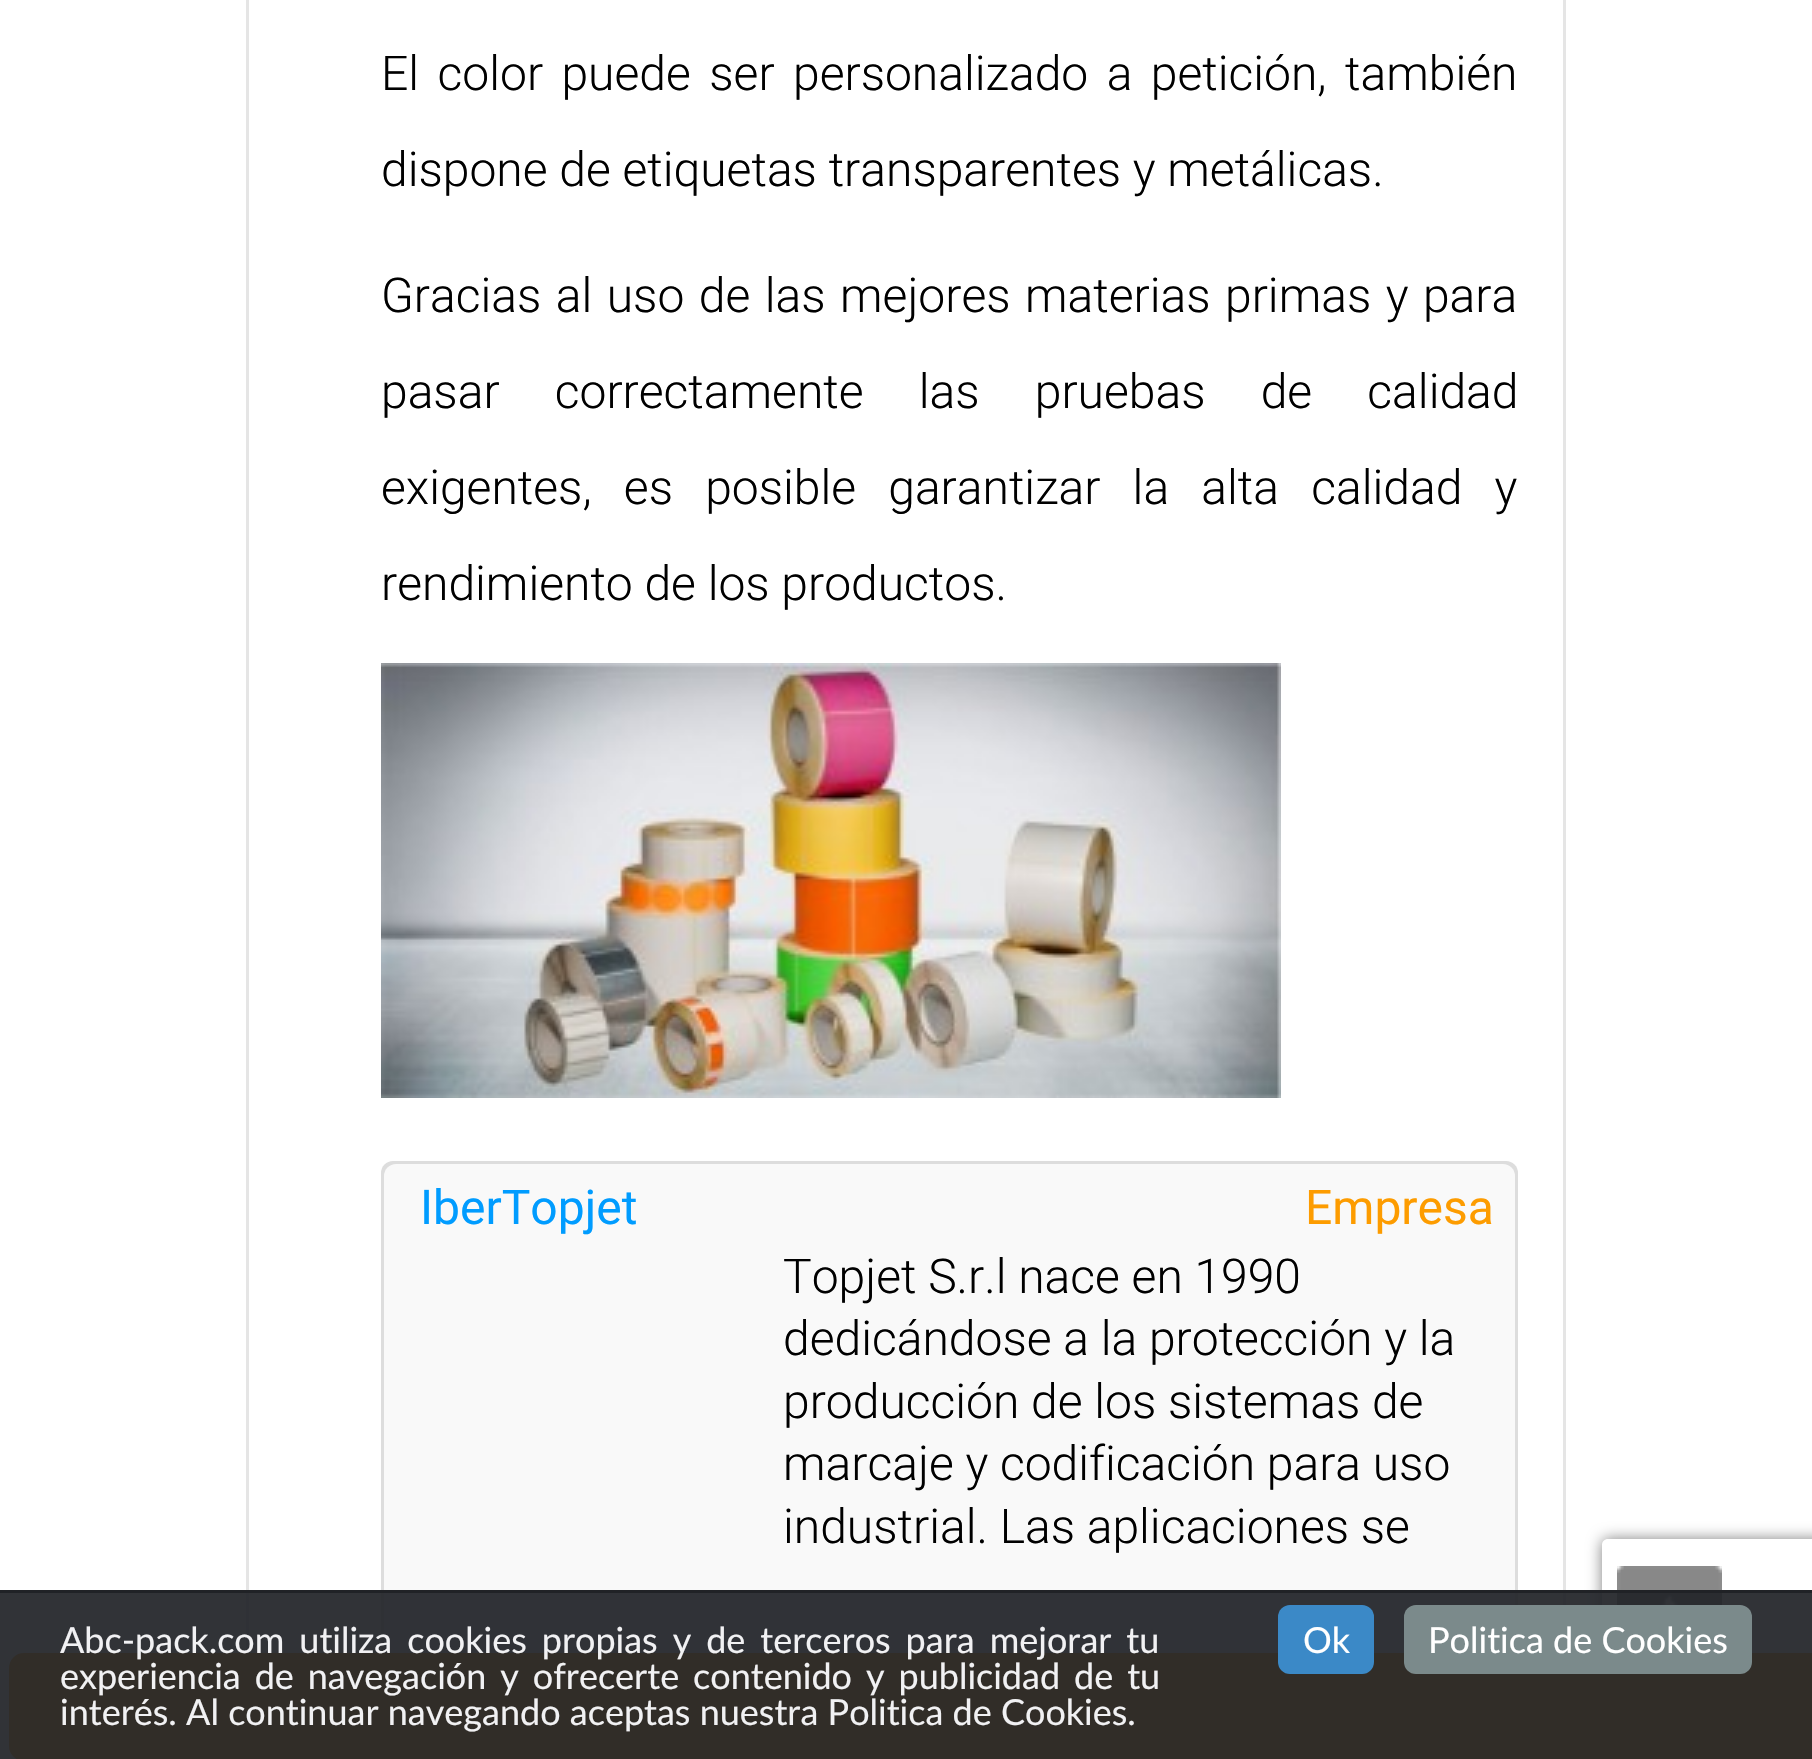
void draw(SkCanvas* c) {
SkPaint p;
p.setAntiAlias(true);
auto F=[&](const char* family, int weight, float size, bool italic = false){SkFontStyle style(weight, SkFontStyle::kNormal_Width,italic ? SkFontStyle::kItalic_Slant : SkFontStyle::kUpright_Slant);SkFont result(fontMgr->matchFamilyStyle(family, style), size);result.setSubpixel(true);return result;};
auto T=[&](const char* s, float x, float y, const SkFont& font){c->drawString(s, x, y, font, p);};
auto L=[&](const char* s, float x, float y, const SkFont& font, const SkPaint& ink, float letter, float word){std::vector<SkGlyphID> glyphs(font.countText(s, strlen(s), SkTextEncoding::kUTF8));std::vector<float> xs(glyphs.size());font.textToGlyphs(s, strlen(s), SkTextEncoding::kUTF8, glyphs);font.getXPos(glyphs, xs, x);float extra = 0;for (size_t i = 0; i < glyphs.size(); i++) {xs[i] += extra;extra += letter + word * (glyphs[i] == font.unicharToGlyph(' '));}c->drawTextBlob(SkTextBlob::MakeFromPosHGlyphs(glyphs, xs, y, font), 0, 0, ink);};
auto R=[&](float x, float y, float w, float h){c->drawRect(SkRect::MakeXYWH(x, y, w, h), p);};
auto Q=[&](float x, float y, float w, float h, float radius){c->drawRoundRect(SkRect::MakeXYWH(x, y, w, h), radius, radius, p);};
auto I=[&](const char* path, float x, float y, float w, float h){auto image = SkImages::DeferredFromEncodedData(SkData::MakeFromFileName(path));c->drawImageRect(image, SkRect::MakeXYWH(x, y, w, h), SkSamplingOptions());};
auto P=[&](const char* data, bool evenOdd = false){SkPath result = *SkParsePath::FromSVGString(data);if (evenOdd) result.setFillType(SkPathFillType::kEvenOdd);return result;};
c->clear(0xffffffff);
p.setStroke(true);
p.setStrokeWidth(3);
p.setColor(0xffe5e5e5);
c->drawRect(SkRect::MakeXYWH(247.5,-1.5,1317,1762),p);
auto f1 = F("Roboto",300,48);
p.setStroke(false);
p.setColor(0xff000000);
L("El color puede ser personalizado a petición, también",381,90,f1,p,0,6.75);
T("dispone de etiquetas transparentes y metálicas.",381,186,f1);
L("Gracias al uso de las mejores materias primas y para",381,312,f1,p,0,2.75);
L("pasar correctamente las pruebas de calidad",381,408,f1,p,0,43.5);
L("exigentes, es posible garantizar la alta calidad y",381,504,f1,p,0,20.5);
T("rendimiento de los productos.",381,600,f1);
I("1.png",381,663,900,435);
p.setColor(0xffdddddd);
Q(381,1161,1137,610,12);
p.setColor(0xfff9f9f9);
Q(384,1164,1131,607,12);
auto f2 = F("Roboto",400,48);
p.setColor(0xff009cff);
T("IberTopjet",420,1224,f2);
p.setColor(0xfffd9c00);
T("Empresa",1305,1224,f2);
p.setColor(0xff000000);
T("Topjet S.r.l nace en 1990",783,1293,f1);
T("dedicándose a la protección y la",783,1355,f1);
T("producción de los sistemas de",783,1418,f1);
T("marcaje y codificación para uso",783,1480,f1);
T("industrial. Las aplicaciones se",783,1543,f1);
c->save();
c->clipPath(P("M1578 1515h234v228h-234zm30 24h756c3.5 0 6 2.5 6 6v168c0 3.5-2.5 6-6 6h-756c-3.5 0-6-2.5-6-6v-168c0-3.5 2.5-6 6-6z",true),true);
p.setColor(0xff808080);
p.setMaskFilter(SkMaskFilter::MakeBlur(kNormal_SkBlurStyle, 7.5));
c->drawRoundRect(SkRect::MakeXYWH(1602,1539,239,180),6,6,p);
p.setMaskFilter(nullptr);
c->restore();
p.setColor(0xfffd9c00);
c->drawRoundRect(SkRect::MakeXYWH(12,1656,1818,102),12,12,p);
p.setStroke(true);
p.setStrokeWidth(6);
c->drawRoundRect(SkRect::MakeXYWH(12,1656,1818,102),12,12,p);
I("2.png",1617,1566,105,39);
p.setStroke(false);
p.setColor(0xb3323a45);
R(0,1593,1812,166);
p.setColor(0xff202226);
R(0,1590,1812,3);
p.setColor(0xcc202226);
R(0,1593,1812,166);
auto f3 = F("Lato",400,36);
p.setColor(0xfff1f1f3);
L("Abc-pack.com utiliza cookies propias y de terceros para mejorar tu",60,1653,f3,p,0,5.75);
L("experiencia de navegación y ofrecerte contenido y publicidad de tu",60,1689,f3,p,0,4.75);
T("interés. Al continuar navegando aceptas nuestra Politica de Cookies.",60,1725,f3);
p.setColor(0xff3b89c7);
Q(1278,1605,96,69,12);
p.setColor(0xffffffff);
T("Ok",1303,1653,f3);
p.setColor(0xff7b8a8b);
Q(1404,1605,348,69,12);
p.setColor(0xffffffff);
T("Politica de Cookies",1428,1653,f3);
}
